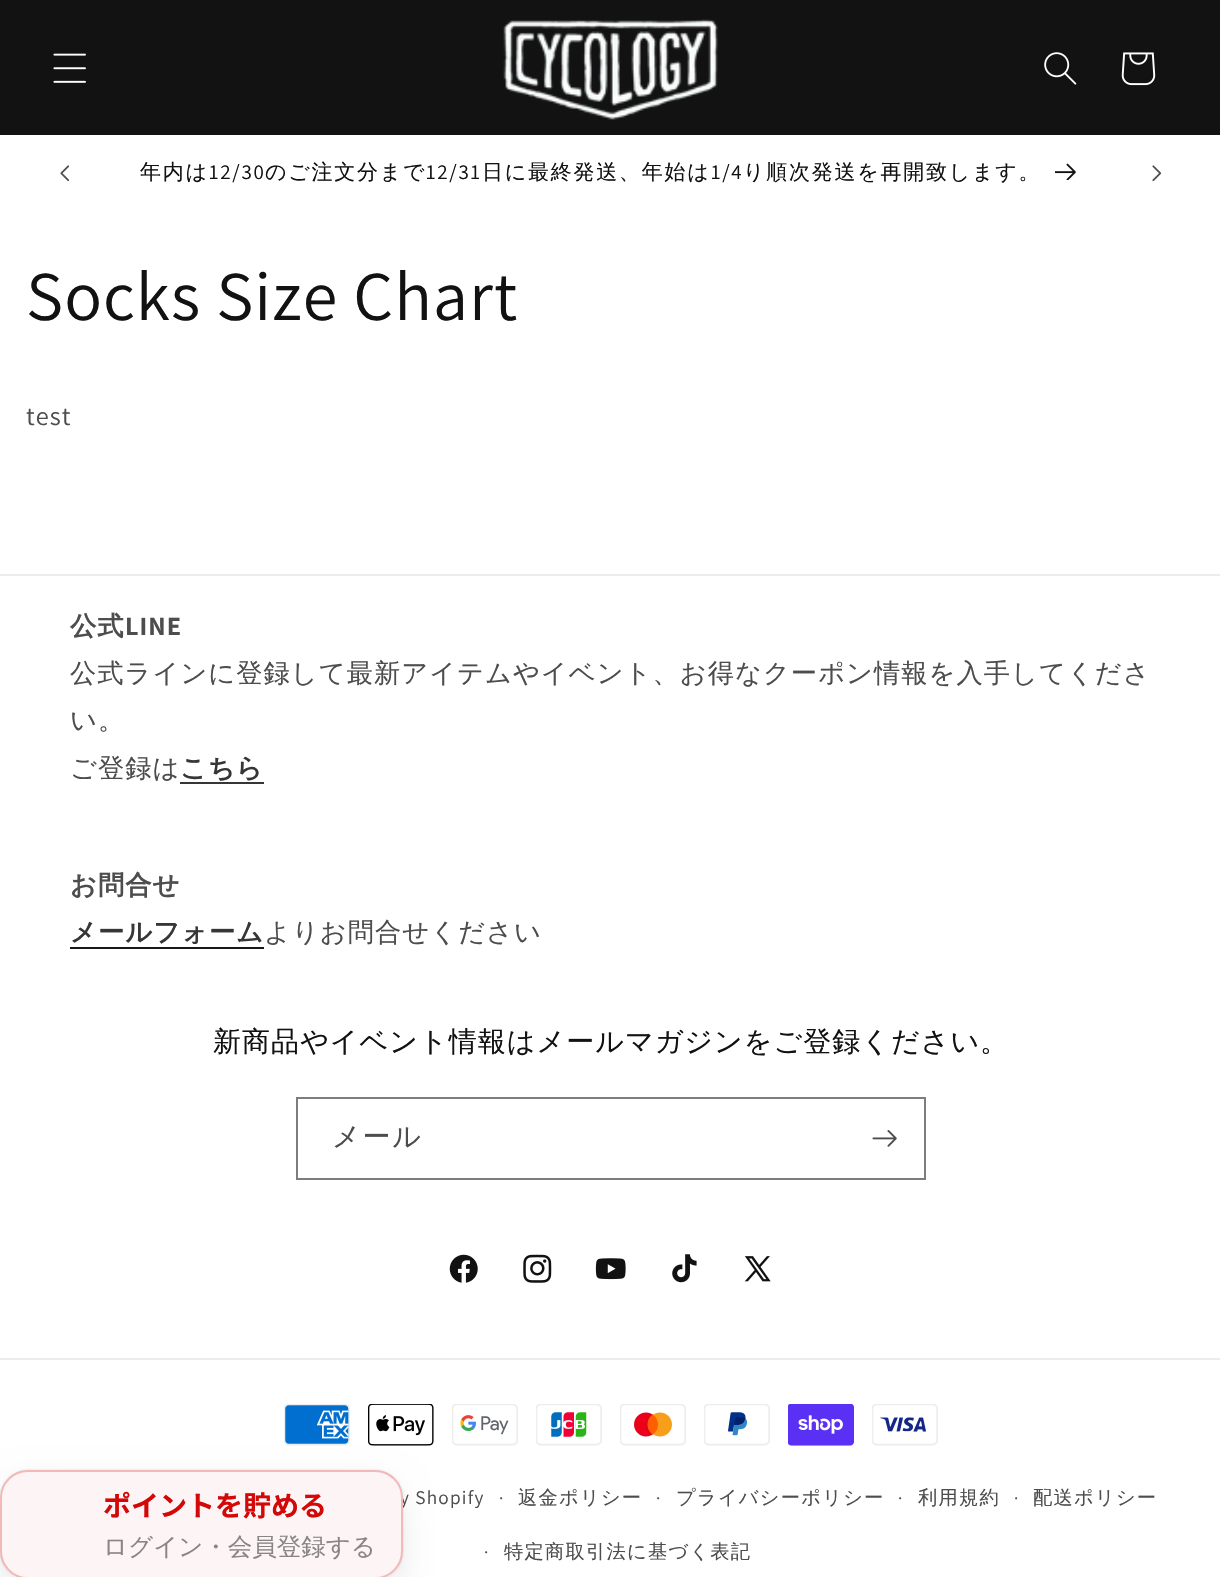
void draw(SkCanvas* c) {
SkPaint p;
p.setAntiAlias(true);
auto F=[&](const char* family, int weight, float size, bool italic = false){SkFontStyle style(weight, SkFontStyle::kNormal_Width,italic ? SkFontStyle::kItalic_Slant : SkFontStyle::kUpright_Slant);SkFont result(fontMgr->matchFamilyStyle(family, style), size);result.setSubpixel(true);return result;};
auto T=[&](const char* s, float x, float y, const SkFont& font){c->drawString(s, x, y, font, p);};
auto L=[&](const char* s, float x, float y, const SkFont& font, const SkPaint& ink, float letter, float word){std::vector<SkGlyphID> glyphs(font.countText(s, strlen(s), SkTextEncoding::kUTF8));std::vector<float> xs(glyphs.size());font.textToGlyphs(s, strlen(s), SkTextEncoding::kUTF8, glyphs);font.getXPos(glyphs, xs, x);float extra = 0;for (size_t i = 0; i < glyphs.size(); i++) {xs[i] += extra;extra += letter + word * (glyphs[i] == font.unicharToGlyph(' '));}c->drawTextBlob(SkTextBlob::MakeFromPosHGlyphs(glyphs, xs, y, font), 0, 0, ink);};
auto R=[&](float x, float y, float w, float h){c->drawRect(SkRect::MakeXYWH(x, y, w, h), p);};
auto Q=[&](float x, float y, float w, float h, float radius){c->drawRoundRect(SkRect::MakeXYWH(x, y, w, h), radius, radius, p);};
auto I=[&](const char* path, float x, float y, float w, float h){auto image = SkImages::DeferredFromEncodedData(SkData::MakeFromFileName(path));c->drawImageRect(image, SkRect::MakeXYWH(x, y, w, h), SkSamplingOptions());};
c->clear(0xffffffff);
p.setColor(0xff121212);
R(0,0,1220,135);
I("1.png",53,53,33,30);
I("2.png",503,19,215,101);
I("3.png",1044,52,33,33);
I("4.png",1121,52,35,34);
I("5.png",60,165,10,17);
auto f1 = F("WenQuanYi Zen Hei",500,21);
L("年内は",140,179,f1,p,1.75,0);
auto f2 = F("Assistant",400,21);
L("12/30",209,179,f2,p,1.75,0);
L("のご注文分まで",265,179,f1,p,1.75,0);
L("12/31",426,179,f2,p,1.75,0);
L("日に最終発送、年始は",482,179,f1,p,1.75,0);
L("1/4",711,179,f2,p,1.75,0);
L("り順次発送を再開致します。",743,179,f1,p,1.75,0);
I("6.png",1055,163,21,17);
I("7.png",1152,165,10,17);
auto f3 = F("Assistant",400,70);
L("Socks Size Chart",26,320,f3,p,1.05,0);
auto f4 = F("Assistant",400,26.25);
p.setColor(0xff4d4d4d);
L("test",26,425,f4,p,1.05,0);
p.setColor(0xffececec);
R(0,574,1220,2);
auto f5 = F("WenQuanYi Zen Hei",700,26.25);
p.setColor(0xff4d4d4d);
L("公式",70,635,f5,p,1.05,0);
auto f6 = F("Assistant",700,26.25);
L("LINE",125,635,f6,p,1.05,0);
auto f7 = F("WenQuanYi Zen Hei",500,26.25);
L("公式ラインに登録して最新アイテムやイベント、お得なクーポン情報を入手してくださ",70,682,f7,p,1.05,0);
L("い。",70,729,f7,p,1.05,0);
L("ご登録は",70,777,f7,p,1.05,0);
p.setColor(0xff363636);
L("こちら",180,777,f5,p,1.05,0);
R(180,782,84,2);
p.setColor(0xff4d4d4d);
L("お問合せ",70,894,f5,p,1.05,0);
p.setColor(0xff363636);
L("メールフォーム",70,941,f5,p,1.05,0);
p.setColor(0xff171717);
R(70,947,194,2);
p.setColor(0xff4d4d4d);
L("よりお問合せください",264,941,f7,p,1.05,0);
auto f8 = F("WenQuanYi Zen Hei",500,28);
p.setColor(0xff121212);
L("新商品やイベント情報はメールマガジンをご登録ください。",213,1051,f8,p,1.05,0);
p.setStroke(true);
p.setStrokeWidth(2);
p.setColor(0xff7d7d7d);
c->drawRect(SkRect::MakeXYWH(297,1098,628,81),p);
p.setStroke(false);
p.setColor(0xff4d4d4d);
L("メール",332,1146,f8,p,1.75,0);
I("8.png",872,1130,25,17);
I("9.png",449,1254,29,29);
I("10.png",523,1254,29,29);
I("11.png",595,1258,31,22);
I("12.png",672,1254,25,29);
I("13.png",744,1256,27,26);
p.setColor(0xffececec);
R(0,1358,1220,2);
I("14.png",284,1404,66,42);
I("15.png",368,1404,66,42);
I("16.png",452,1404,66,42);
I("17.png",536,1404,66,42);
I("18.png",620,1404,66,42);
I("19.png",704,1404,66,42);
I("20.png",788,1404,66,42);
I("21.png",872,1404,66,42);
auto f9 = F("Assistant",400,19.25);
p.setColor(0xff4d4d4d);
L("y Shopify",400,1504,f9,p,1.25,0);
auto f10 = F("Assistant",400,18);
L("·",499,1504,f10,p,1.25,0);
auto f11 = F("WenQuanYi Zen Hei",500,19.25);
L("返金ポリシー",518,1504,f11,p,1.25,0);
L("·",656,1504,f10,p,1.25,0);
L("プライバシーポリシー",676,1504,f11,p,1.25,0);
L("·",898,1504,f10,p,1.25,0);
L("利用規約",918,1504,f11,p,1.25,0);
L("·",1014,1504,f10,p,1.25,0);
L("配送ポリシー",1033,1504,f11,p,1.25,0);
L("·",484,1558,f10,p,1.25,0);
L("特定商取引法に基づく表記",504,1558,f11,p,1.25,0);
p.setColor(0x0d000000);
p.setMaskFilter(SkMaskFilter::MakeBlur(kNormal_SkBlurStyle, 14));
c->drawRoundRect(SkRect::MakeXYWH(0,1477,403,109),28,28,p);
p.setMaskFilter(nullptr);
p.setColor(0x1a111826);
p.setMaskFilter(SkMaskFilter::MakeBlur(kNormal_SkBlurStyle, 28));
c->drawRoundRect(SkRect::MakeXYWH(18,1516,367,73),11,11,p);
p.setMaskFilter(nullptr);
p.setColor(0x26000000);
p.setMaskFilter(SkMaskFilter::MakeBlur(kNormal_SkBlurStyle, 1));
c->drawRoundRect(SkRect::MakeXYWH(0,1470,403,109),28,28,p);
p.setMaskFilter(nullptr);
p.setColor(0xfffdf5f5);
Q(0,1470,403,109,28);
p.setStroke(true);
p.setColor(0x40d30808);
c->drawRoundRect(SkRect::MakeXYWH(1,1471,401,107),27,27,p);
auto f12 = F("Noto Sans JP",700,28);
p.setStroke(false);
p.setColor(0xffd30808);
T("ポイントを貯める",103,1516,f12);
auto f13 = F("WenQuanYi Zen Hei",500,24.5);
p.setColor(0xff898586);
T("ログイン・会員登録する",103,1555,f13);
}
